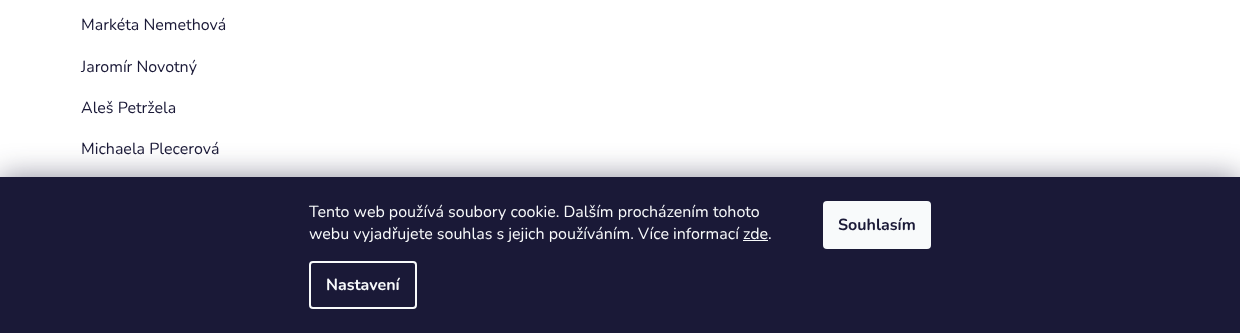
(async () => {
const canvas = document.querySelector("canvas")
canvas.width = 1240
canvas.height = 333
const c = canvas.getContext("2d")
c.miterLimit = 4
c.fontKerning = "normal"
function T(s,x,y){c.fillText(s,x,y)}
function R(x,y,w,h){c.fillRect(x,y,w,h)}
function Q(x,y,w,h,r){c.beginPath();c.roundRect(x,y,w,h,r);c.fill()}
c.fillStyle="#fff"
R(0,0,1240,333)
c.font="16px Nunito"
c.fillStyle="#1a1937"
T("Markéta Nemethová",81,30)
T("Jaromír Novotný",81,72)
T("Aleš Petržela",81,113)
T("Michaela Plecerová",81,154)
c.fillStyle="#1b193980"
c.filter="blur(15px)"
c.beginPath()
c.rect(0,177,1240,156)
c.fill()
c.filter="none"
c.fillStyle="#1a1937"
R(0,177,1240,156)
c.fillStyle="#f8fafb"
T("Tento web používá soubory cookie. Dalším procházením tohoto",309,217)
T("webu vyjadřujete souhlas s jejich používáním. Více informací zde.",309,239)
R(743,240,25,1)
c.beginPath()
c.roundRect(310,262,106,46,3)
c.strokeStyle="#f8fafb"
c.lineWidth=2
c.stroke()
c.font="bold 16px Nunito"
T("Nastavení",326,290)
Q(823,201,108,48,4)
c.fillStyle="#1a1937"
T("Souhlasím",838,230)
})()
